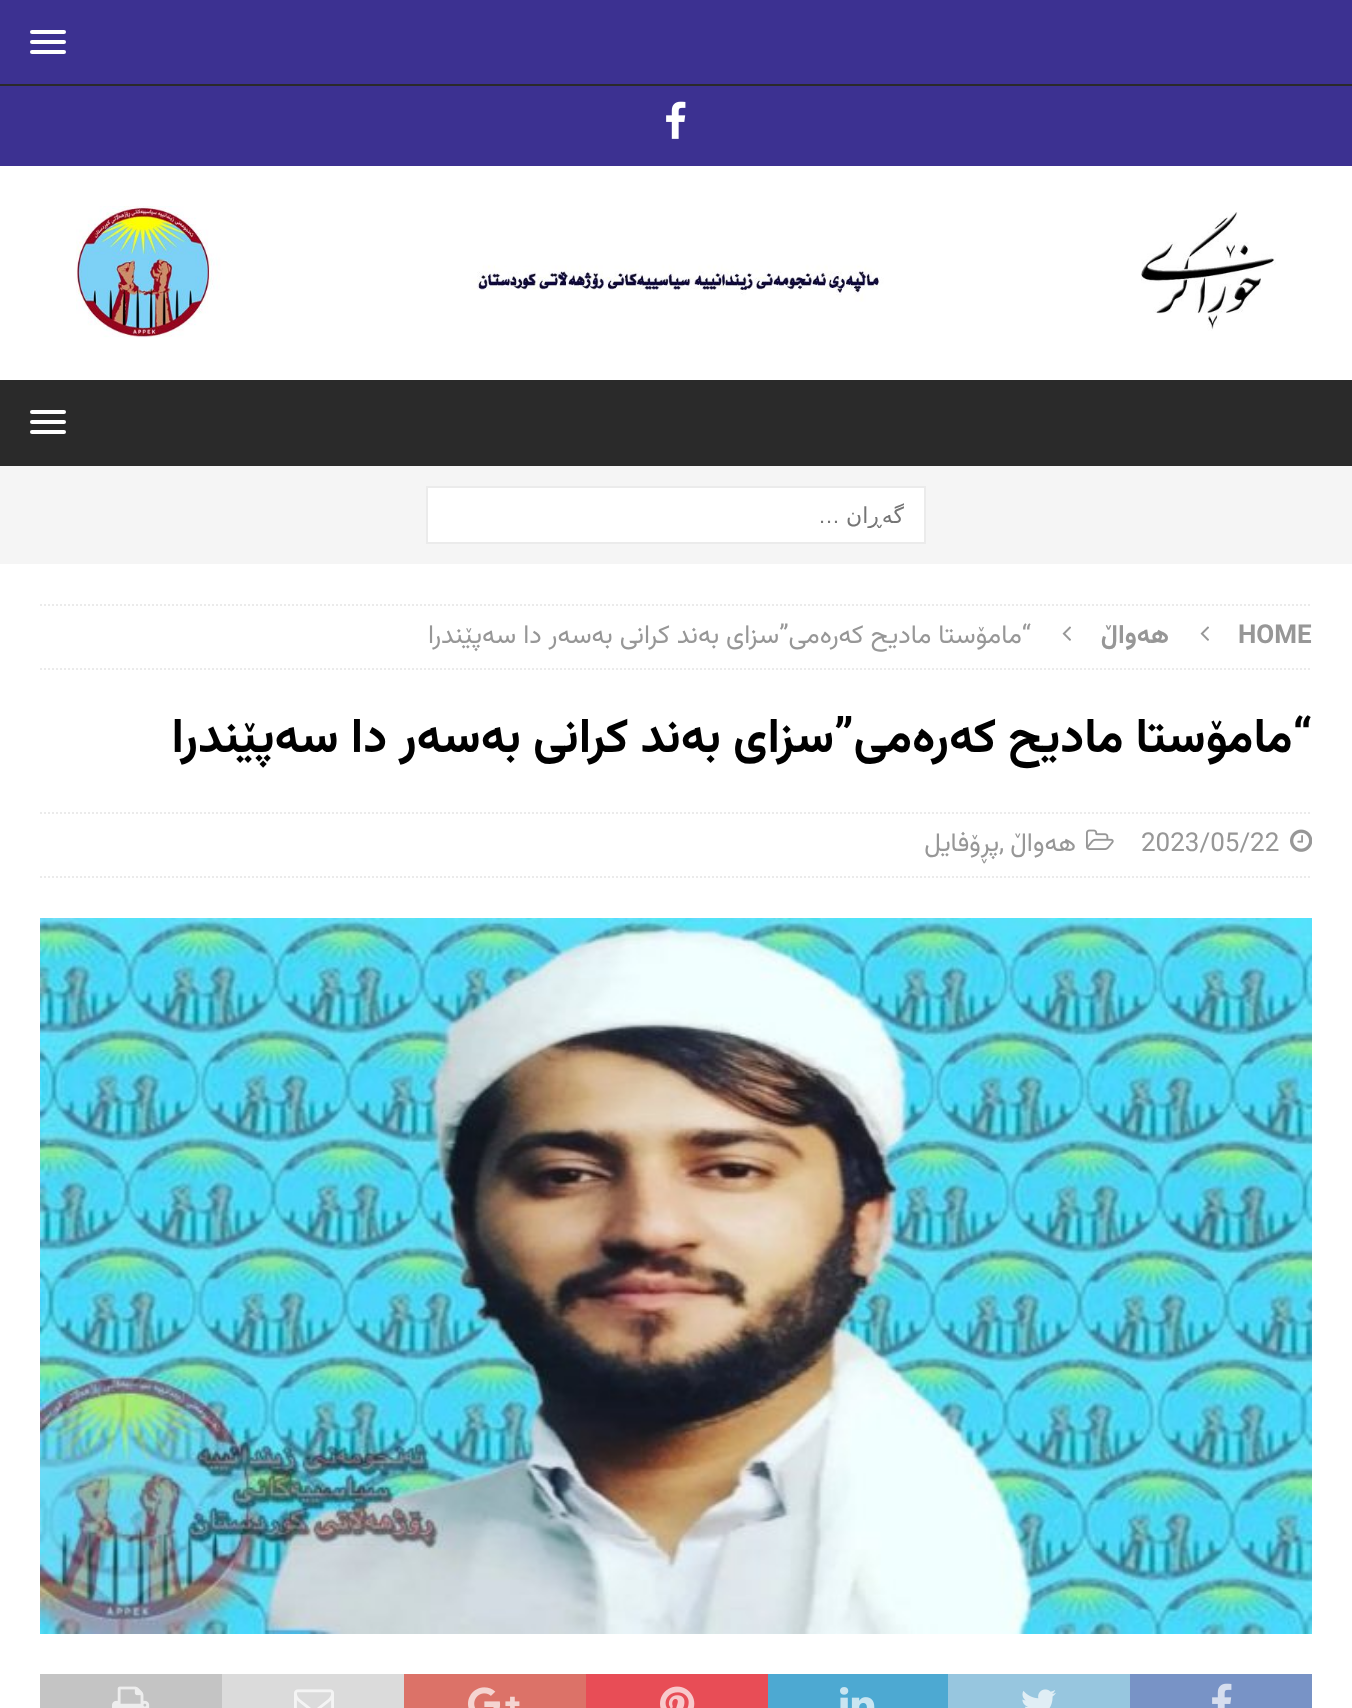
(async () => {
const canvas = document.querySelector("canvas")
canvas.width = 1352
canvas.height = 1708
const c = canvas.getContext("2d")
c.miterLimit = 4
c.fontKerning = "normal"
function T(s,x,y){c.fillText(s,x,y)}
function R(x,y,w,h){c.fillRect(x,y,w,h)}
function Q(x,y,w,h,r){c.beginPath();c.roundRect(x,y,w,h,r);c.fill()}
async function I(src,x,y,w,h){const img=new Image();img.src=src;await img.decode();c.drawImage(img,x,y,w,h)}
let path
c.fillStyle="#3c3191"
R(0,0,1352,1708)
c.fillStyle="#2a2a2a"
R(0,84,1352,2)
c.fillStyle="#fff"
Q(30,30,36,4,2)
Q(30,40,36,4,2)
Q(30,50,36,4,2)
await I("1.png",666,101,20,38)
R(0,166,1352,214)
await I("2.png",76,206,1200,132)
c.fillStyle="#2a2a2a"
R(0,380,1352,86)
c.fillStyle="#fff"
Q(30,410,36,4,2)
Q(30,420,36,4,2)
Q(30,430,36,4,2)
c.fillStyle="#f5f5f5"
R(0,466,1352,98)
c.fillStyle="#fff"
c.beginPath()
c.rect(427,487,498,56)
c.fill()
c.strokeStyle="#ebebeb"
c.lineWidth=2
c.stroke()
c.save()
c.beginPath()
c.rect(472,502,432,26)
c.clip()
c.direction="rtl"
c.font="22px DejaVu Sans"
c.fillStyle="#757575"
T("گەڕان",904,523)
c.restore()
c.direction="rtl"
c.font="22px Liberation Sans"
c.fillStyle="#757575"
T("…",840,523)
c.fillStyle="#fff"
R(0,564,1352,1144)
path = new Path2D("M40 605h1272")
c.setLineDash([2,2])
c.stroke(path)
path = new Path2D("M40 669h1272")
c.stroke(path)
c.direction="ltr"
c.font="bold 26px Vazirmatn"
c.fillStyle="#979797"
T("HOME",1238,643)
await I("3.png",1200,626,9,15)
c.direction="rtl"
T("هەواڵ",1169,643)
await I("3.png",1062,626,9,15)
c.font="26px Vazirmatn"
T("“مامۆستا مادیح کەرەمی”سزای بەند کرانی بەسەر دا سەپێندرا",1031,643)
c.font="bold 48px Vazirmatn"
c.fillStyle="#000"
T("“مامۆستا مادیح کەرەمی”سزای بەند کرانی بەسەر دا سەپێندرا",1312,752)
path = new Path2D("M40 813h1272")
c.stroke(path)
path = new Path2D("M40 877h1272")
c.stroke(path)
await I("4.png",1290,829,22,23)
c.direction="ltr"
c.font="26px Vazirmatn"
c.fillStyle="#979797"
T("2023/05/22",1141,851)
await I("5.png",1086,829,28,21)
c.direction="rtl"
T("هەواڵ",1076,851)
c.direction="ltr"
T(",",999,851)
c.direction="rtl"
T("پڕۆفایل",999,851)
await I("6.png",40,918,1272,716)
c.fillStyle="#7893c6"
R(1130,1674,182,34)
await I("7.png",1212,1683,20,25)
c.fillStyle="#97c6df"
R(948,1674,182,34)
await I("8.png",1022,1689,34,19)
c.fillStyle="#4da9d2"
R(768,1674,180,34)
await I("9.png",840,1687,35,21)
c.fillStyle="#e84d56"
R(586,1674,182,34)
await I("10.png",660,1686,35,22)
c.fillStyle="#dc7268"
R(404,1674,182,34)
await I("11.png",468,1687,52,21)
c.fillStyle="#dbdbdb"
R(222,1674,182,34)
await I("12.png",294,1689,40,19)
c.fillStyle="#c4c4c4"
R(40,1674,182,34)
await I("13.png",112,1686,38,22)
})()
